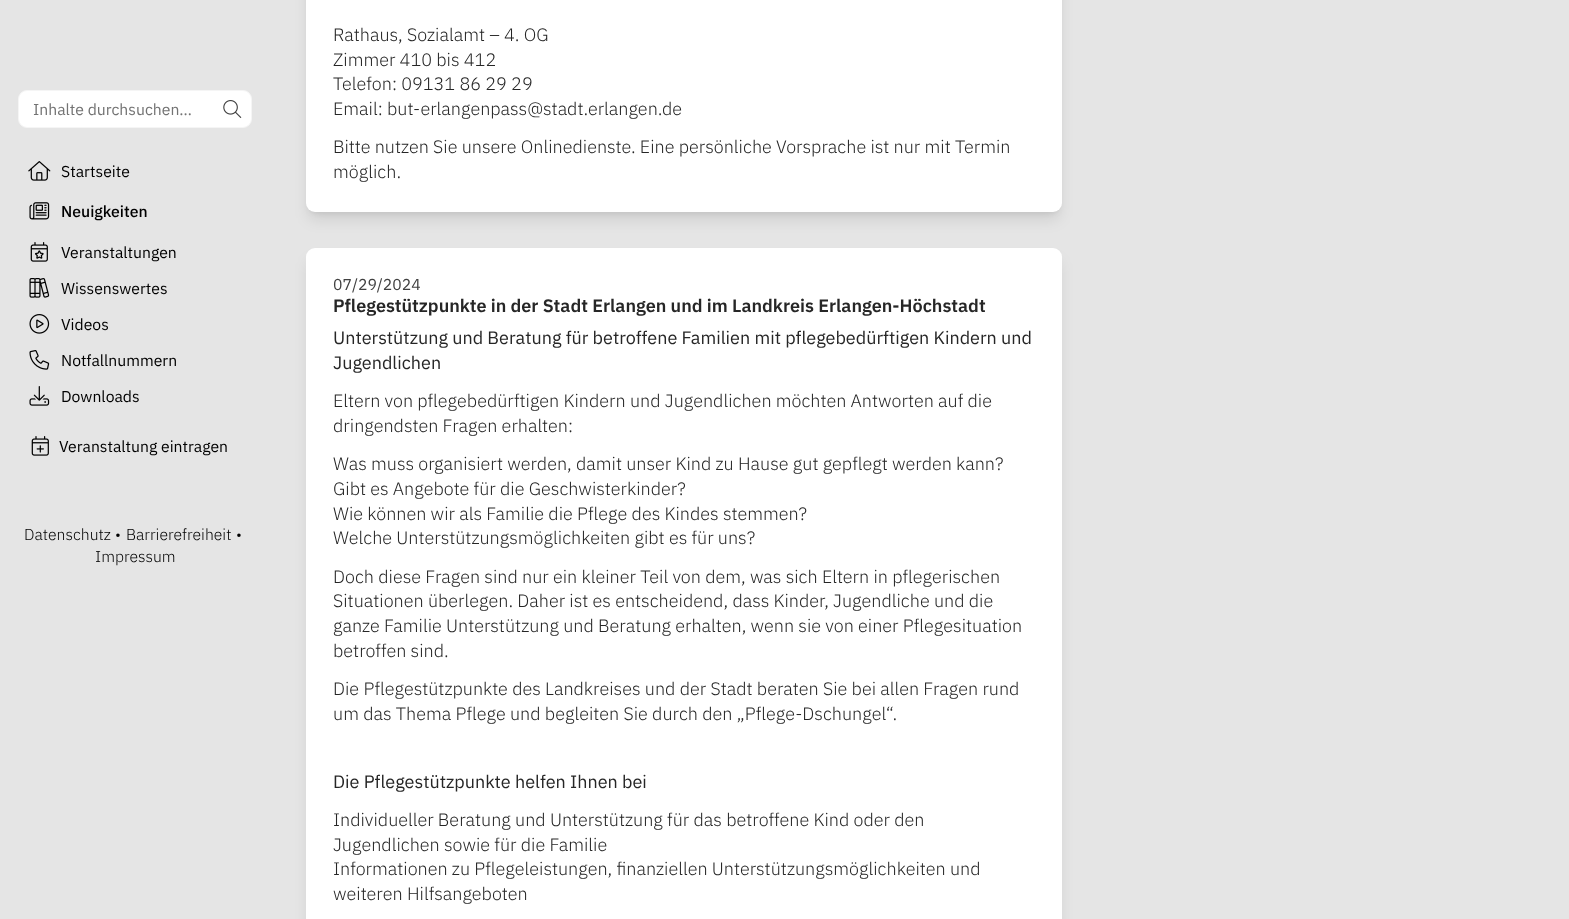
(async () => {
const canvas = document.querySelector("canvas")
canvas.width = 1569
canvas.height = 919
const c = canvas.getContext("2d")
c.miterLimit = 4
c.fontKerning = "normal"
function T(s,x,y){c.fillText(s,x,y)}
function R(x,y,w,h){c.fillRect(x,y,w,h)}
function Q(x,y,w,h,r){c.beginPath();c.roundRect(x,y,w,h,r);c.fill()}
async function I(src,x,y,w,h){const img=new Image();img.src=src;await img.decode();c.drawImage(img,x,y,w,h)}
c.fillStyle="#e5e5e5"
R(0,0,1569,919)
c.fillStyle="#fff"
c.beginPath()
c.roundRect(18.5,90.5,233,37,8.5)
c.fill()
c.strokeStyle="#f5f5f5"
c.stroke()
c.font="15.75px IBM Plex Sans"
c.fillStyle="#737373"
T("Inhalte durchsuchen…",33,115)
await I("1.png",223,100,19,18)
await I("2.png",28,161,23,20)
c.fillStyle="#000"
T("Startseite",61,177)
await I("3.png",29,202,21,18)
c.font="500 15.75px IBM Plex Sans"
T("Neuigkeiten",61,217)
await I("4.png",30,242,18,20)
c.font="15.75px IBM Plex Sans"
T("Veranstaltungen",61,258)
await I("5.png",29,278,21,20)
T("Wissenswertes",61,294)
await I("6.png",29,314,21,20)
T("Videos",61,330)
await I("7.png",29,350,21,20)
T("Notfallnummern",61,366)
await I("8.png",29,386,21,20)
T("Downloads",61,402)
await I("9.png",31,436,18,20)
T("Veranstaltung eintragen",59,452)
c.font="300 15.75px IBM Plex Sans"
T("Datenschutz",24,540)
T("•",115,540)
T("Barrierefreiheit",126,540)
T("•",236,540)
T("Impressum",95,562)
c.fillStyle="#0000001a"
c.filter="blur(3px)"
c.beginPath()
c.roundRect(310,-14,748,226,5)
c.fill()
c.filter="none"
c.filter="blur(7.5px)"
c.beginPath()
c.roundRect(309,-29,750,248,6)
c.fill()
c.filter="none"
c.fillStyle="#fff"
Q(306,-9,756,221,9)
c.font="300 18px IBM Plex Sans"
c.fillStyle="#262626"
T("Rathaus, Sozialamt – 4. OG",333,41)
T("Zimmer 410 bis 412",333,66)
T("Telefon: 09131 86 29 29",333,90)
T("Email: but-erlangenpass@stadt.erlangen.de",333,115)
T("Bitte nutzen Sie unsere Onlinedienste. Eine persönliche Vorsprache ist nur mit Termin",333,153)
T("möglich.",333,178)
c.fillStyle="#0000001a"
c.filter="blur(7.5px)"
c.beginPath()
c.roundRect(309,261,750,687,6)
c.fill()
c.filter="none"
c.fillStyle="#fff"
Q(306,248,756,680,9)
c.font="15.75px IBM Plex Sans"
c.fillStyle="#404040"
T("07/29/2024",333,290)
c.font="600 18px IBM Plex Sans"
c.fillStyle="#262626"
T("Pflegestützpunkte in der Stadt Erlangen und im Landkreis Erlangen-Höchstadt",333,312)
c.font="18px IBM Plex Sans"
T("Unterstützung und Beratung für betroffene Familien mit pflegebedürftigen Kindern und",333,344)
T("Jugendlichen",333,369)
c.font="300 18px IBM Plex Sans"
T("Eltern von pflegebedürftigen Kindern und Jugendlichen möchten Antworten auf die",333,407)
T("dringendsten Fragen erhalten:",333,432)
T("Was muss organisiert werden, damit unser Kind zu Hause gut gepflegt werden kann?",333,470)
T("Gibt es Angebote für die Geschwisterkinder?",333,495)
T("Wie können wir als Familie die Pflege des Kindes stemmen?",333,520)
T("Welche Unterstützungsmöglichkeiten gibt es für uns?",333,544)
T("Doch diese Fragen sind nur ein kleiner Teil von dem, was sich Eltern in pflegerischen",333,583)
T("Situationen überlegen. Daher ist es entscheidend, dass Kinder, Jugendliche und die",333,607)
T("ganze Familie Unterstützung und Beratung erhalten, wenn sie von einer Pflegesituation",333,632)
T("betroffen sind.",333,657)
T("Die Pflegestützpunkte des Landkreises und der Stadt beraten Sie bei allen Fragen rund",333,695)
T("um das Thema Pflege und begleiten Sie durch den „Pflege-Dschungel“.",333,720)
c.font="18px IBM Plex Sans"
T("Die Pflegestützpunkte helfen Ihnen bei",333,788)
c.font="300 18px IBM Plex Sans"
T("Individueller Beratung und Unterstützung für das betroffene Kind oder den",333,826)
T("Jugendlichen sowie für die Familie",333,851)
T("Informationen zu Pflegeleistungen, finanziellen Unterstützungsmöglichkeiten und",333,875)
T("weiteren Hilfsangeboten",333,900)
})()
